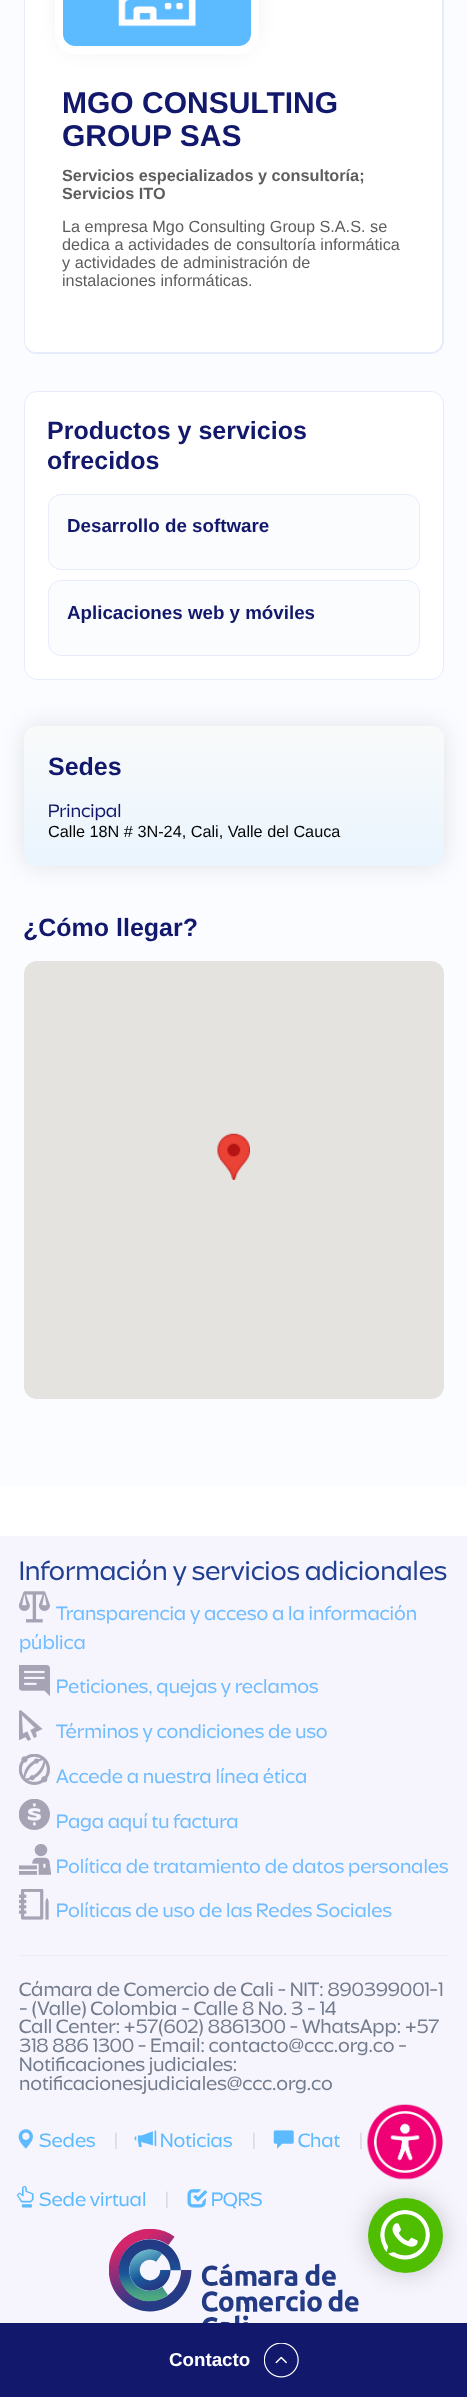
(async () => {
const canvas = document.querySelector("canvas")
canvas.width = 467
canvas.height = 2397
const c = canvas.getContext("2d")
c.miterLimit = 4
c.fontKerning = "normal"
function T(s,x,y){c.fillText(s,x,y)}
function R(x,y,w,h){c.fillRect(x,y,w,h)}
function Q(x,y,w,h,r){c.beginPath();c.roundRect(x,y,w,h,r);c.fill()}
async function I(src,x,y,w,h){const img=new Image();img.src=src;await img.decode();c.drawImage(img,x,y,w,h)}
let gradient, path
c.fillStyle="#fbfcff"
R(0,0,467,2397)
c.fillStyle="#fff"
path = new Path2D("M24-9h420v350c0 7-6 13-13 13h-394c-7 0-13-6-13-13z")
c.fill(path)
c.fillStyle="#e7ecfd"
path = new Path2D("M24-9h420v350c0 7-6 13-13 13h-395c-7 0-12-6-12-13zm1 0h417v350c0 6-5 11-11 11h-395c-6 0-11-5-11-11z")
c.fill(path,"evenodd")
c.fillStyle="#0000001a"
c.filter="blur(12.5px)"
c.beginPath()
c.roundRect(63,-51,188,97,13)
c.fill()
c.filter="none"
await I("1.png",63,0,188,46)
c.beginPath()
c.roundRect(59,-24,196,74,16)
c.strokeStyle="#fff"
c.lineWidth=8
c.stroke()
c.font="bold 30px Liberation Sans"
c.fillStyle="#12186b"
T("MGO CONSULTING",62,113)
T("GROUP SAS",62,146)
c.font="bold 16.25px Liberation Sans"
c.fillStyle="#5d5d5d"
T("Servicios especializados y consultoría;",62,181)
T("Servicios ITO",62,199)
c.font="16.25px Liberation Sans"
T("La empresa Mgo Consulting Group S.A.S. se",62,232)
T("dedica a actividades de consultoría informática",62,250)
T("y actividades de administración de",62,268)
T("instalaciones informáticas.",62,286)
c.fillStyle="#fff"
c.beginPath()
c.roundRect(24.5,391.5,419,288,12.5)
c.fill()
c.strokeStyle="#e7ecfd"
c.lineWidth=1
c.stroke()
c.font="bold 25px Liberation Sans"
c.fillStyle="#12186b"
T("Productos y servicios",47,439)
T("ofrecidos",47,469)
c.fillStyle="#fbfcfd"
c.beginPath()
c.roundRect(48.5,494.5,371,75,12.5)
c.fill()
c.stroke()
c.font="bold 18.75px Liberation Sans"
c.fillStyle="#12186b"
T("Desarrollo de software",67,532)
c.fillStyle="#fbfcfd"
c.beginPath()
c.roundRect(48.5,580.5,371,75,12.5)
c.fill()
c.stroke()
c.fillStyle="#12186b"
T("Aplicaciones web y móviles",67,619)
c.fillStyle="#0000001a"
c.filter="blur(12.5px)"
c.beginPath()
c.roundRect(24,726,420,140,13)
c.fill()
c.filter="none"
gradient = c.createLinearGradient(234,726,234,866)
gradient.addColorStop(0,"#f9fafa")
gradient.addColorStop(1,"#eaf5fe")
c.fillStyle = gradient
Q(24,726,420,140,13)
c.font="bold 25px Liberation Sans"
c.fillStyle="#12186b"
T("Sedes",48,775)
c.font="300 18.75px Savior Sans"
T("Principal",48,817)
c.font="16.25px Liberation Sans"
c.fillStyle="#050505"
T("Calle 18N # 3N-24, Cali, Valle del Cauca",48,837)
c.font="bold 25px Liberation Sans"
c.fillStyle="#12186b"
T("¿Cómo llegar?",23,936)
c.fillStyle="#e5e3df"
Q(24,961,420,438,13)
await I("2.png",217,1133,33,47)
c.fillStyle="#fff"
R(0,1486,467,50)
c.fillStyle="#f6f4fd"
R(0,1536,467,787)
c.font="300 27.5px Savior Sans"
c.fillStyle="#214092"
T("Información y servicios adicionales",19,1580)
await I("3.png",19,1591,31,32)
c.font="300 20px Savior Sans"
c.fillStyle="#6fbcff"
T("Transparencia y acceso a la información",56,1620)
T("pública",19,1649)
await I("4.png",19,1665,31,31)
T("Peticiones, quejas y reclamos",56,1693)
await I("5.png",19,1710,24,31)
T("Términos y condiciones de uso",56,1738)
await I("6.png",19,1754,31,31)
T("Accede a nuestra línea ética",56,1783)
await I("7.png",19,1799,31,31)
T("Paga aquí tu factura",56,1828)
await I("8.png",19,1844,32,31)
T("Política de tratamiento de datos personales",56,1873)
await I("9.png",19,1889,30,31)
T("Políticas de uso de las Redes Sociales",56,1917)
c.fillStyle="#eee"
R(19,1955,430,1)
c.fillStyle="#737c8d"
T("Cámara de Comercio de Cali - NIT: 890399001-1",19,1996)
T("- (Valle) Colombia - Calle 8 No. 3 - 14",19,2015)
T("Call Center: +57(602) 8861300 - WhatsApp: +57",19,2033)
T("318 886 1300 - Email: contacto@ccc.org.co -",19,2052)
T("Notificaciones judiciales:",19,2071)
T("notificacionesjudiciales@ccc.org.co",19,2090)
await I("10.png",18,2129,15,20)
c.fillStyle="#5cbaff"
T("Sedes",39,2147)
c.fillStyle="#ddd"
T("|",114,2147)
await I("11.png",134,2130,23,18)
c.fillStyle="#5cbaff"
T("Noticias",160,2147)
c.fillStyle="#ddd"
T("|",252,2147)
await I("12.png",273,2130,21,19)
c.fillStyle="#5cbaff"
T("Chat",298,2147)
c.fillStyle="#ddd"
T("|",359,2147)
await I("13.png",16,2186,18,22)
c.fillStyle="#5cbaff"
T("Sede virtual",39,2206)
c.fillStyle="#ddd"
T("|",165,2206)
await I("14.png",187,2189,21,19)
c.fillStyle="#5cbaff"
T("PQRS",211,2206)
await I("15.png",109,2229,250,94)
c.fillStyle="#00000033"
c.filter="blur(12.5px)"
c.beginPath()
c.roundRect(368,2198,75,75,37.5)
c.fill()
c.filter="none"
c.fillStyle="#efefef"
c.beginPath()
c.arc(405.5,2141.5,37.5,0,7)
c.fill()
await I("16.png",367,2104,76,76)
c.fillStyle="#50be00"
c.beginPath()
c.arc(405.5,2235.5,37.5,0,7)
c.fill()
await I("17.png",380,2210,50,50)
c.fillStyle="#12186b"
R(0,2323,467,74)
c.font="bold 18.75px Liberation Sans"
c.fillStyle="#fff"
T("Contacto",169,2366)
await I("18.png",264,2343,35,35)
})()
